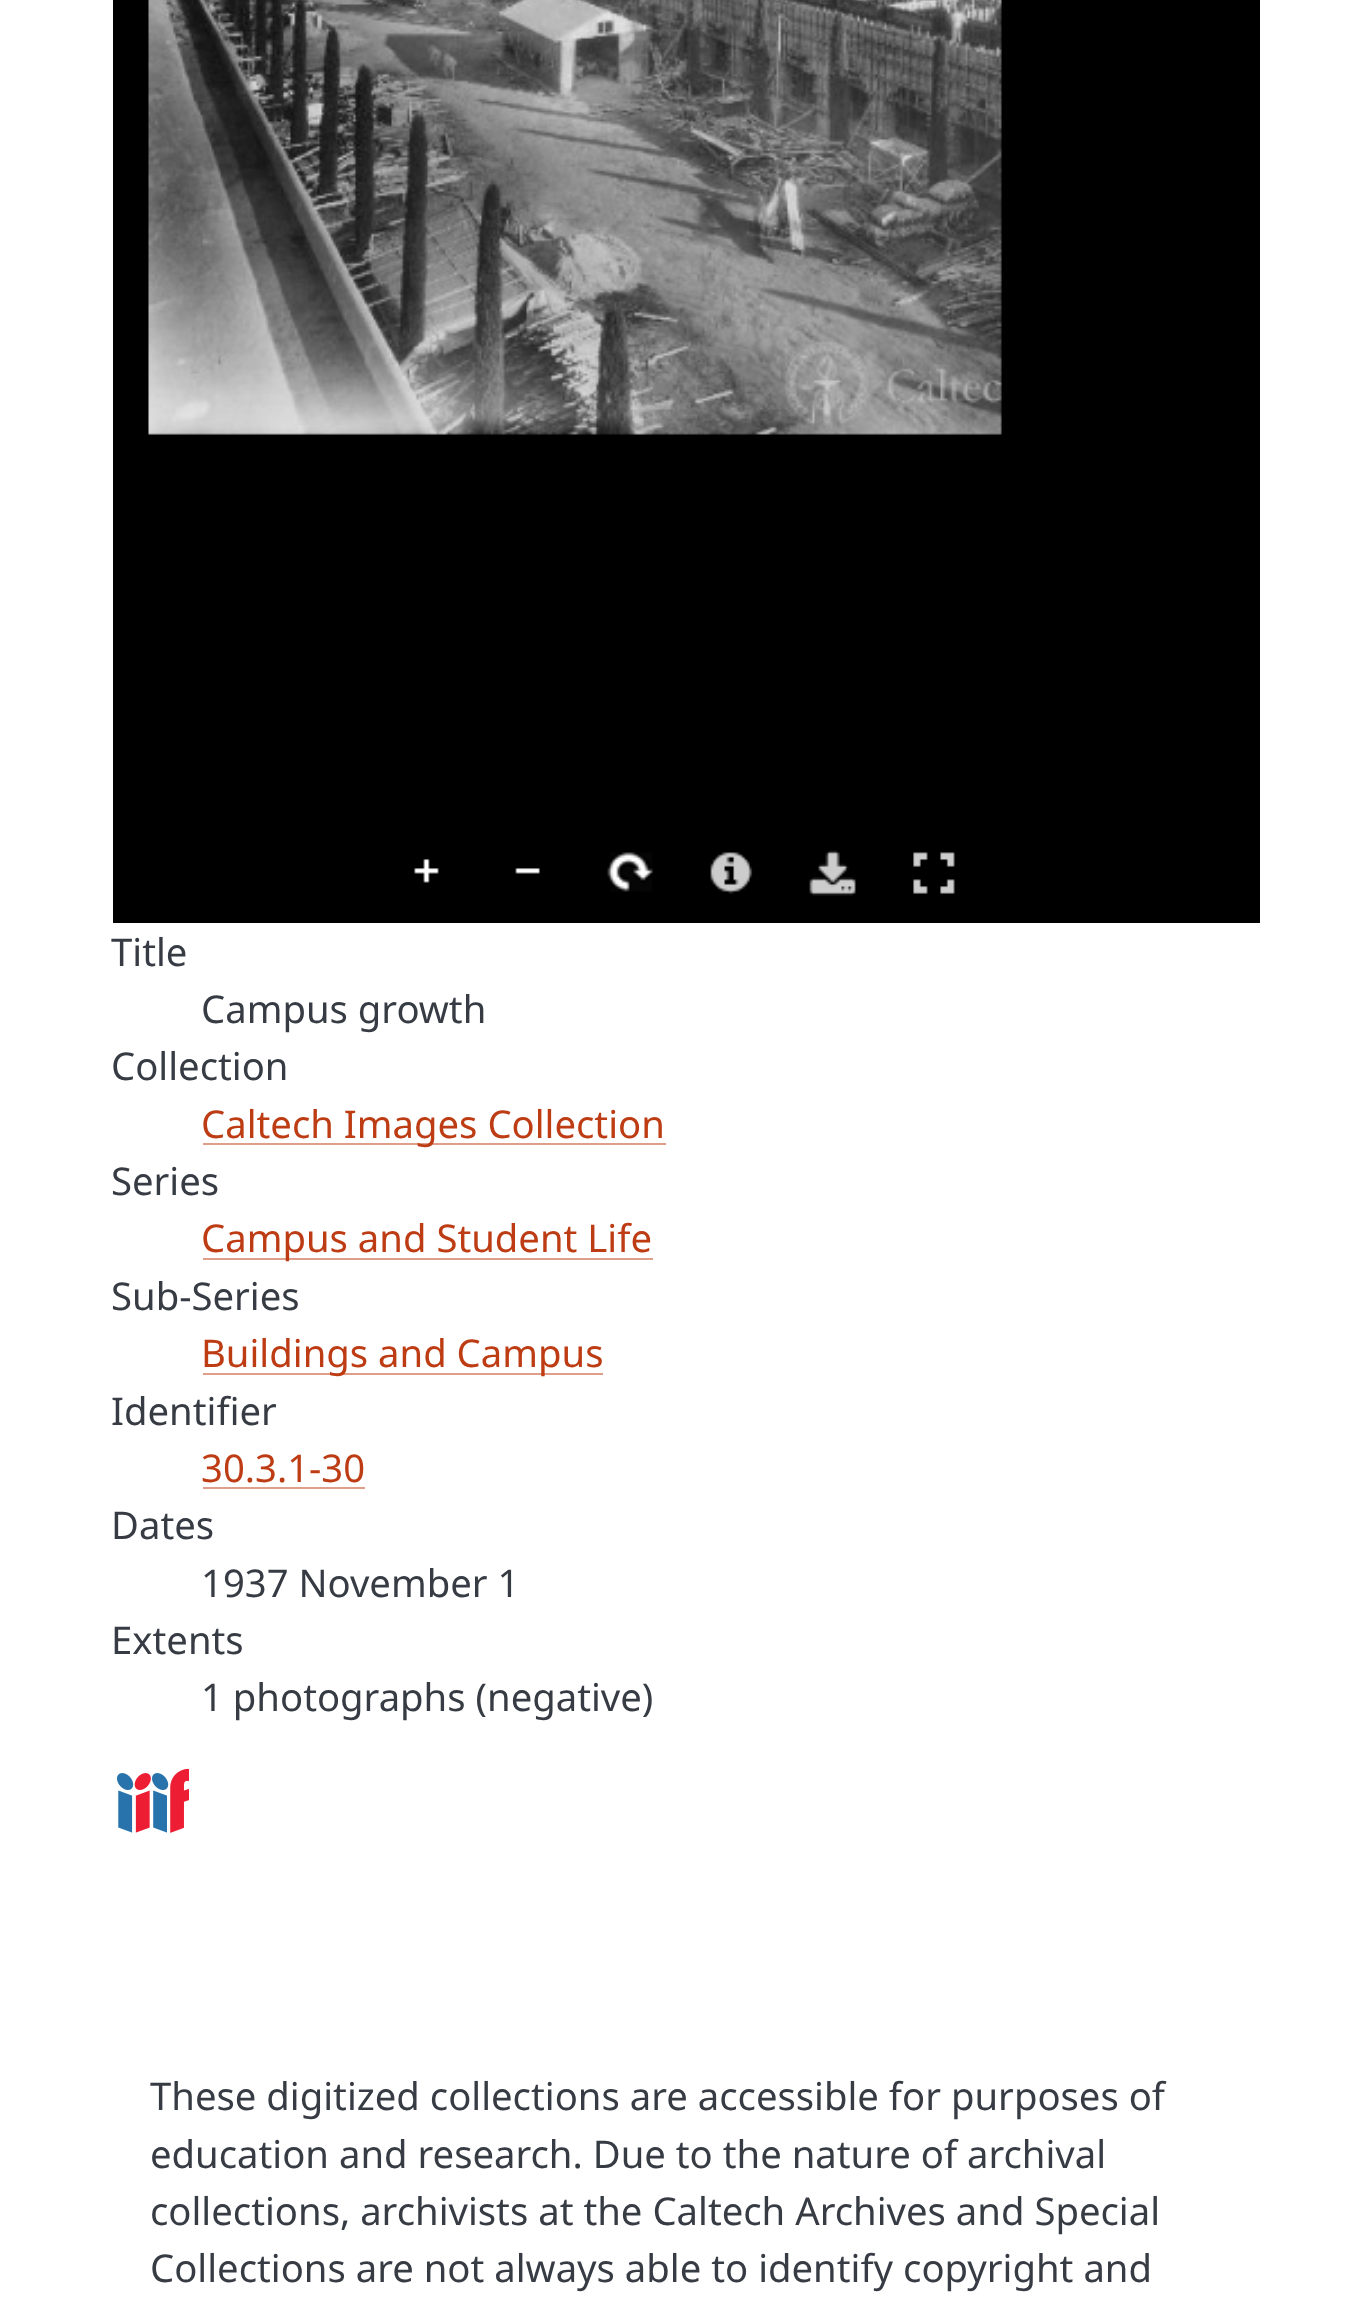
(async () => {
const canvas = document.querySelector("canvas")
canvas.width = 1370
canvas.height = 2304
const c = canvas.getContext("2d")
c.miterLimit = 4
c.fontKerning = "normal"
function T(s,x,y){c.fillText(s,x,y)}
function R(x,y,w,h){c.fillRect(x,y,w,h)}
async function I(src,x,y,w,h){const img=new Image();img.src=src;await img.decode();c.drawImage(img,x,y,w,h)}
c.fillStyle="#fff"
R(0,0,1370,2304)
c.fillStyle="#000"
R(113,0,1147,923)
await I("1.png",148,0,854,435)
await I("2.png",414,859,25,24)
await I("3.png",515,868,25,6)
await I("4.png",607,852,47,40)
await I("5.png",710,852,43,42)
await I("6.png",809,850,47,46)
await I("7.png",913,852,42,42)
c.font="38.25px Noto Sans"
c.fillStyle="#373c44"
T("Title",111,966)
T("Campus growth",201,1023)
T("Collection",111,1080)
c.fillStyle="#de9e89"
R(203,1143,463,2)
c.fillStyle="#bd3c13"
T("Caltech Images Collection",201,1138)
c.fillStyle="#373c44"
T("Series",111,1195)
c.fillStyle="#de9e89"
R(203,1258,450,2)
c.fillStyle="#bd3c13"
T("Campus and Student Life",201,1252)
c.fillStyle="#373c44"
T("Sub-Series",111,1310)
c.fillStyle="#de9e89"
R(203,1373,400,2)
c.fillStyle="#bd3c13"
T("Buildings and Campus",201,1367)
c.fillStyle="#373c44"
T("Identifier",111,1425)
c.fillStyle="#bd3c13"
T("30.3.1-30",201,1482)
c.fillStyle="#de9e89"
R(203,1487,162,2)
c.fillStyle="#373c44"
T("Dates",111,1539)
T("1937 November 1",201,1597)
T("Extents",111,1654)
T("1 photographs (negative)",201,1711)
await I("8.png",117,1769,72,64)
T("These digitized collections are accessible for purposes of",150,2110)
T("education and research. Due to the nature of archival",150,2168)
T("collections, archivists at the Caltech Archives and Special",150,2225)
T("Collections are not always able to identify copyright and",150,2282)
})()
